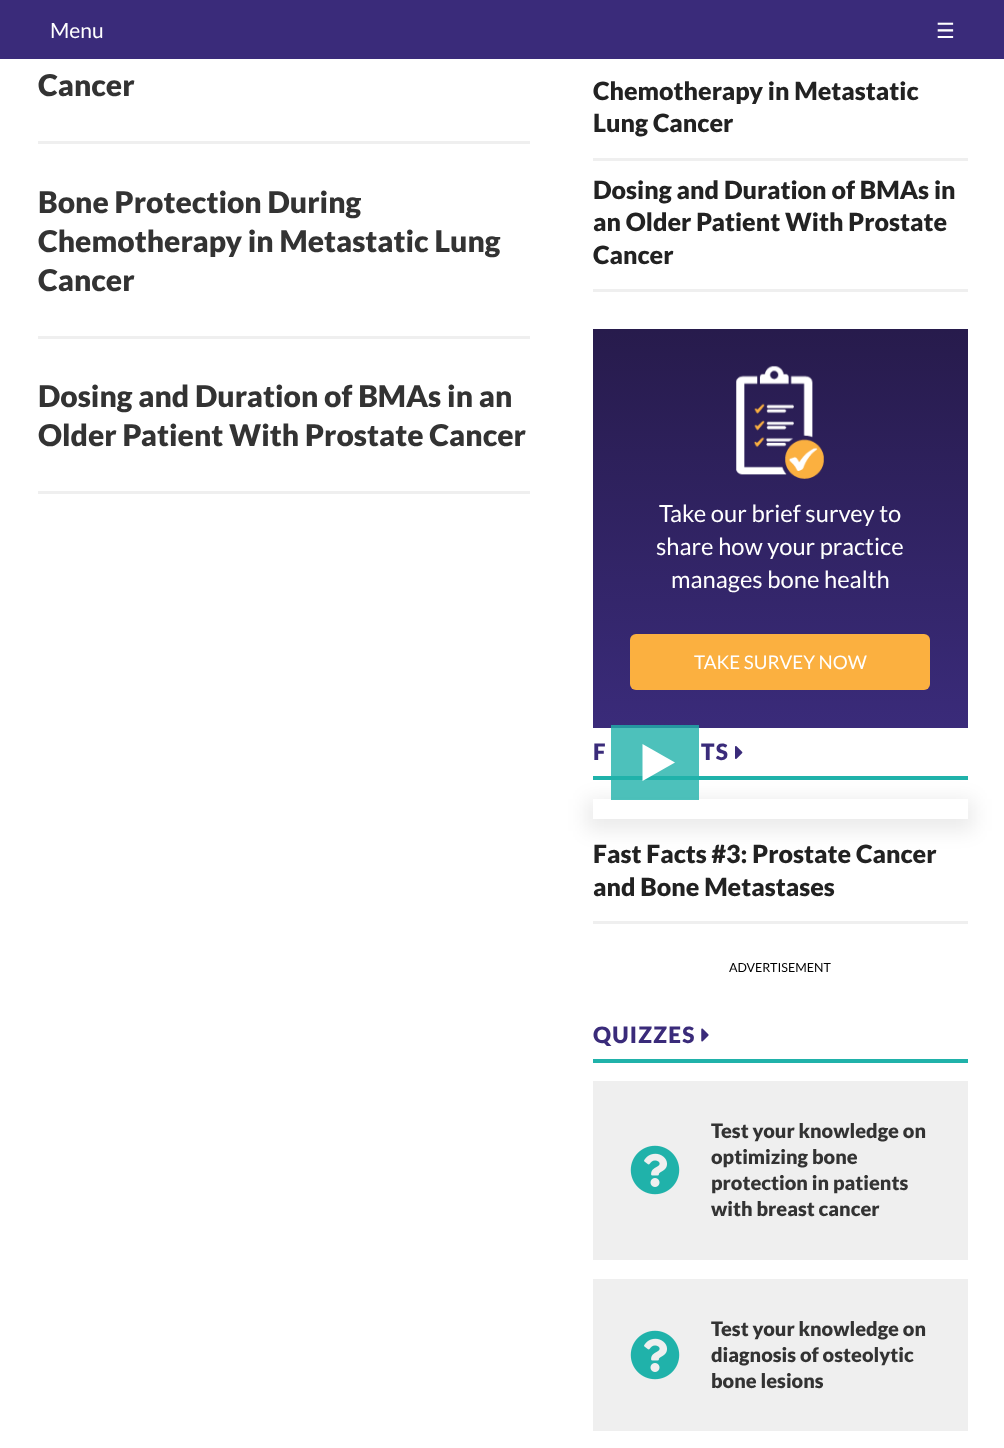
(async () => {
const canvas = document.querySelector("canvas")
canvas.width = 1004
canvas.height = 1448
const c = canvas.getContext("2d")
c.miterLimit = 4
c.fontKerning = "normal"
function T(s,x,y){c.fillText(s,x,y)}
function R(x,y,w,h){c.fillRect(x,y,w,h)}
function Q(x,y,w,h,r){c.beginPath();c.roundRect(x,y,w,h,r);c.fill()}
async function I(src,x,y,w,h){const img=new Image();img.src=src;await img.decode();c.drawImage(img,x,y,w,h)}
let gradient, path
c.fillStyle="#fff"
R(0,0,1004,1448)
c.fillStyle="#3a2b7a"
R(0,0,1004,59)
c.font="21px Lato"
c.fillStyle="#fff"
T("Menu",50,38)
c.font="21px DejaVu Sans"
T("☰",936,38)
c.fillStyle="#efefef"
R(38,141,492,3)
c.font="900 30px Lato"
c.fillStyle="#333"
T("Cancer",38,96)
c.fillStyle="#efefef"
R(38,336,492,3)
c.fillStyle="#333"
T("Bone Protection During",38,213)
T("Chemotherapy in Metastatic Lung",38,252)
T("Cancer",38,291)
c.fillStyle="#efefef"
R(38,491,492,3)
c.fillStyle="#333"
T("Dosing and Duration of BMAs in an",38,407)
T("Older Patient With Prostate Cancer",38,446)
c.fillStyle="#efefef"
R(593,158,375,3)
c.font="900 25px Lato"
c.fillStyle="#222"
T("Chemotherapy in Metastatic",593,100)
T("Lung Cancer",593,132)
c.fillStyle="#efefef"
R(593,289,375,3)
c.fillStyle="#222"
T("Dosing and Duration of BMAs in",593,199)
T("an Older Patient With Prostate",593,231)
T("Cancer",593,264)
gradient = c.createLinearGradient(780,329,780,728)
gradient.addColorStop(0,"#271b4c")
gradient.addColorStop(1,"#3a2b7a")
c.fillStyle = gradient
R(593,329,375,399)
await I("1.png",736,365,88,114)
c.font="23.75px Lato"
c.fillStyle="#fff"
T("Take our brief survey to",659,522)
T("share how your practice",656,555)
T("manages bone health",671,588)
c.fillStyle="#fbb040"
Q(630,634,300,56,6)
c.font="18.75px Lato"
c.fillStyle="#fff"
T("TAKE SURVEY NOW",694,669)
c.fillStyle="#20b2aa"
R(593,776,375,4)
c.save()
path = new Path2D("M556 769h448v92h-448zm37 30h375v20h-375z")
c.clip(path,"evenodd")
c.fillStyle="#00000014"
c.filter="blur(9.5px)"
c.beginPath()
c.rect(586,799,388,32)
c.fill()
c.filter="none"
c.restore()
c.fillStyle="#20b2aacc"
R(611,725,88,75)
c.fillStyle="#fff"
path = new Path2D("M642.5 781v-37l32.5 18.5z")
c.fill(path)
c.letterSpacing="1.25px"
c.font="900 22.5px Lato"
c.fillStyle="#3a2b7a"
T("F",593,760)
T("TS",701,760)
await I("2.png",735,746,8,13)
c.fillStyle="#efefef"
R(593,921,375,3)
c.letterSpacing="0px"
c.font="900 25px Lato"
c.fillStyle="#222"
T("Fast Facts #3: Prostate Cancer",593,863)
T("and Bone Metastases",593,896)
c.font="12.5px Lato"
c.fillStyle="#000"
T("ADVERTISEMENT",729,972)
c.fillStyle="#20b2aa"
R(593,1059,375,4)
c.letterSpacing="1.25px"
c.font="900 22.5px Lato"
c.fillStyle="#3a2b7a"
T("QUIZZES",593,1043)
await I("3.png",701,1028,8,14)
c.fillStyle="#efefef"
R(593,1081,375,179)
await I("4.png",630,1145,50,50)
c.letterSpacing="0px"
c.font="900 20px Lato"
c.fillStyle="#333"
T("Test your knowledge on",711,1138)
T("optimizing bone",711,1164)
T("protection in patients",711,1190)
T("with breast cancer",711,1216)
c.fillStyle="#efefef"
R(593,1279,375,152)
await I("4.png",630,1330,50,50)
c.fillStyle="#333"
T("Test your knowledge on",711,1336)
T("diagnosis of osteolytic",711,1362)
T("bone lesions",711,1388)
})()
